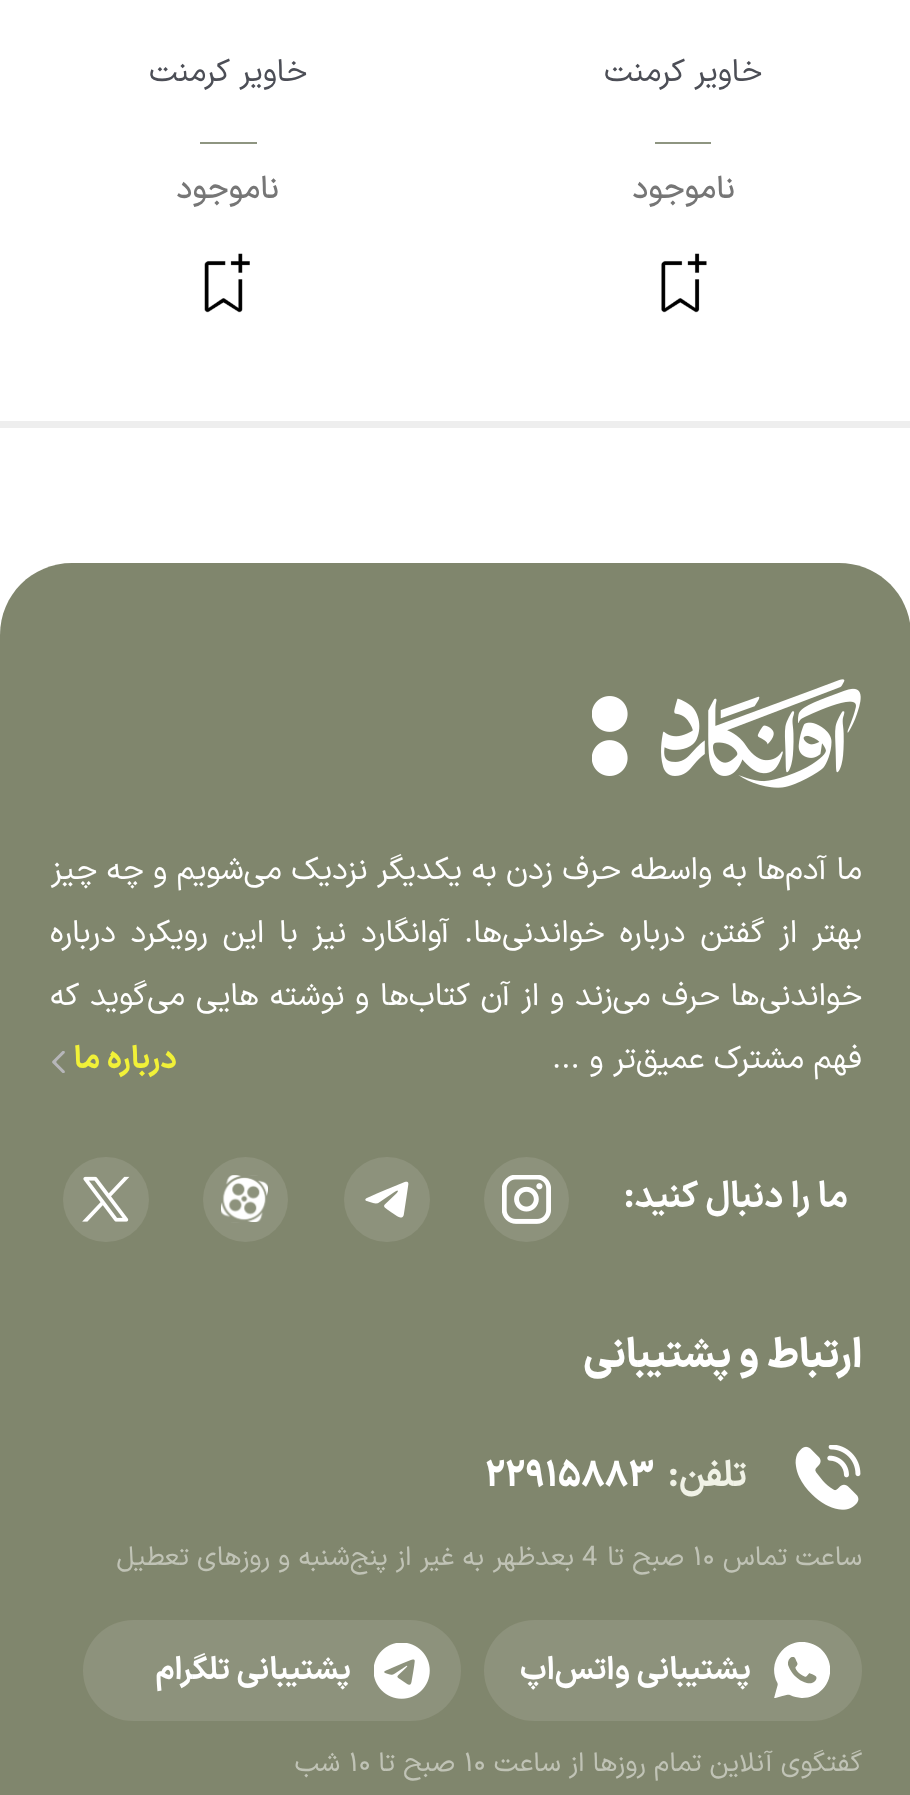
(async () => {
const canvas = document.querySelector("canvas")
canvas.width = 910
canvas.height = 1795
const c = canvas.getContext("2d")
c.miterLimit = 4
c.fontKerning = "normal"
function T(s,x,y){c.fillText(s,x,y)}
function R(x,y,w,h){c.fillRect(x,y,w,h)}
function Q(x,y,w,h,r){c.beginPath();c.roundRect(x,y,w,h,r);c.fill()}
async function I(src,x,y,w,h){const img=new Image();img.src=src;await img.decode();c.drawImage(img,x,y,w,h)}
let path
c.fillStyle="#fff"
R(0,0,910,1795)
c.fillStyle="#eee"
R(0,421,910,7)
c.direction="rtl"
c.font="31.5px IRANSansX"
c.fillStyle="#4c4e56"
T("خاویر كرمنت",762,81)
c.fillStyle="#8e9581"
R(655,142,56,2)
c.font="500 31.5px IRANSansX"
c.fillStyle="#767676"
T("ناموجود",735,198)
await I("1.png",661,253,46,60)
c.font="31.5px IRANSansX"
c.fillStyle="#4c4e56"
T("خاویر كرمنت",307,81)
c.fillStyle="#8e9581"
R(200,142,57,2)
c.font="500 31.5px IRANSansX"
c.fillStyle="#767676"
T("ناموجود",279,198)
await I("2.png",204,253,46,60)
c.fillStyle="#80866d"
path = new Path2D("M72 563h767c40 0 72 32 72 72v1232h-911v-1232c0-40 32-72 72-72z")
c.fill(path)
await I("3.png",592,679,269,109)
c.font="31.5px IRANSansX"
c.fillStyle="#fff"
T("ما آدم‌ها به واسطه حرف زدن به یکدیگر نزدیک می‌شویم و چه چیز",862,879)
c.wordSpacing="5.25px"
T("بهتر از گفتن درباره خواندنی‌ها. آوانگارد نیز با این رویکرد درباره",862,942)
c.wordSpacing="1.25px"
T("خواندنی‌ها حرف می‌زند و از آن کتاب‌ها و نوشته هایی می‌گوید که",862,1005)
c.wordSpacing="0px"
T("فهم مشترک عمیق‌تر و ...",862,1068)
c.font="bold 31.5px IRANSansX"
c.fillStyle="#f1f138"
T("درباره ما",177,1068)
await I("4.png",52,1051,13,22)
c.font="bold 36px IRANSansX"
c.fillStyle="#fff"
T("ما را دنبال کنید:",848,1207)
c.fillStyle="#8d927c"
c.beginPath()
c.arc(526.5,1199.5,42.5,0,7)
c.fill()
await I("5.png",502,1175,49,49)
Q(344,1157,86,85,42.5)
await I("6.png",365,1181,44,37)
c.beginPath()
c.arc(245.5,1199.5,42.5,0,7)
c.fill()
await I("7.png",221,1175,47,48)
Q(63,1157,86,85,42.5)
await I("8.png",82,1176,48,46)
c.font="800 40.5px IRANSansX"
c.fillStyle="#fff"
T("ارتباط و پشتیبانی",862,1367)
await I("9.png",795,1445,66,65)
c.font="bold 36px IRANSansX"
c.fillStyle="#f0f2e6"
T("تلفن:",747,1486)
c.direction="ltr"
c.font="800 36px IRANSansX"
c.fillStyle="#fff"
T("۲۲۹۱۵۸۸۳",485,1486)
c.direction="rtl"
c.font="27px IRANSansX"
c.fillStyle="#c0c3b6"
T("ساعت تماس",862,1565)
c.direction="ltr"
c.font="27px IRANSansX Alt"
T("10",693,1565)
c.direction="rtl"
c.font="27px IRANSansX"
T("صبح تا",684,1565)
c.direction="ltr"
T("4",582,1565)
c.direction="rtl"
T("بعدظهر",574,1565)
T("به غیر از پنج‌شنبه و روزهای تعطیل",484,1565)
c.fillStyle="#8d927c"
Q(484,1620,378,101,50.5)
await I("10.png",774,1642,56,56)
c.font="bold 31.5px IRANSansX"
c.fillStyle="#fff"
T("پشتیبانی واتس‌اپ",751,1679)
c.fillStyle="#8d927c"
Q(83,1620,378,101,50.5)
await I("11.png",374,1643,56,56)
c.fillStyle="#fff"
T("پشتیبانی تلگرام",351,1679)
c.font="27px IRANSansX"
c.fillStyle="#c0c3b6"
T("گفتگوی آنلاین تمام روزها از ساعت",862,1771)
c.direction="ltr"
T("۱۰",464,1771)
c.direction="rtl"
T("صبح تا",455,1771)
c.direction="ltr"
T("۱۰",349,1771)
c.direction="rtl"
T("شب",340,1771)
})()
